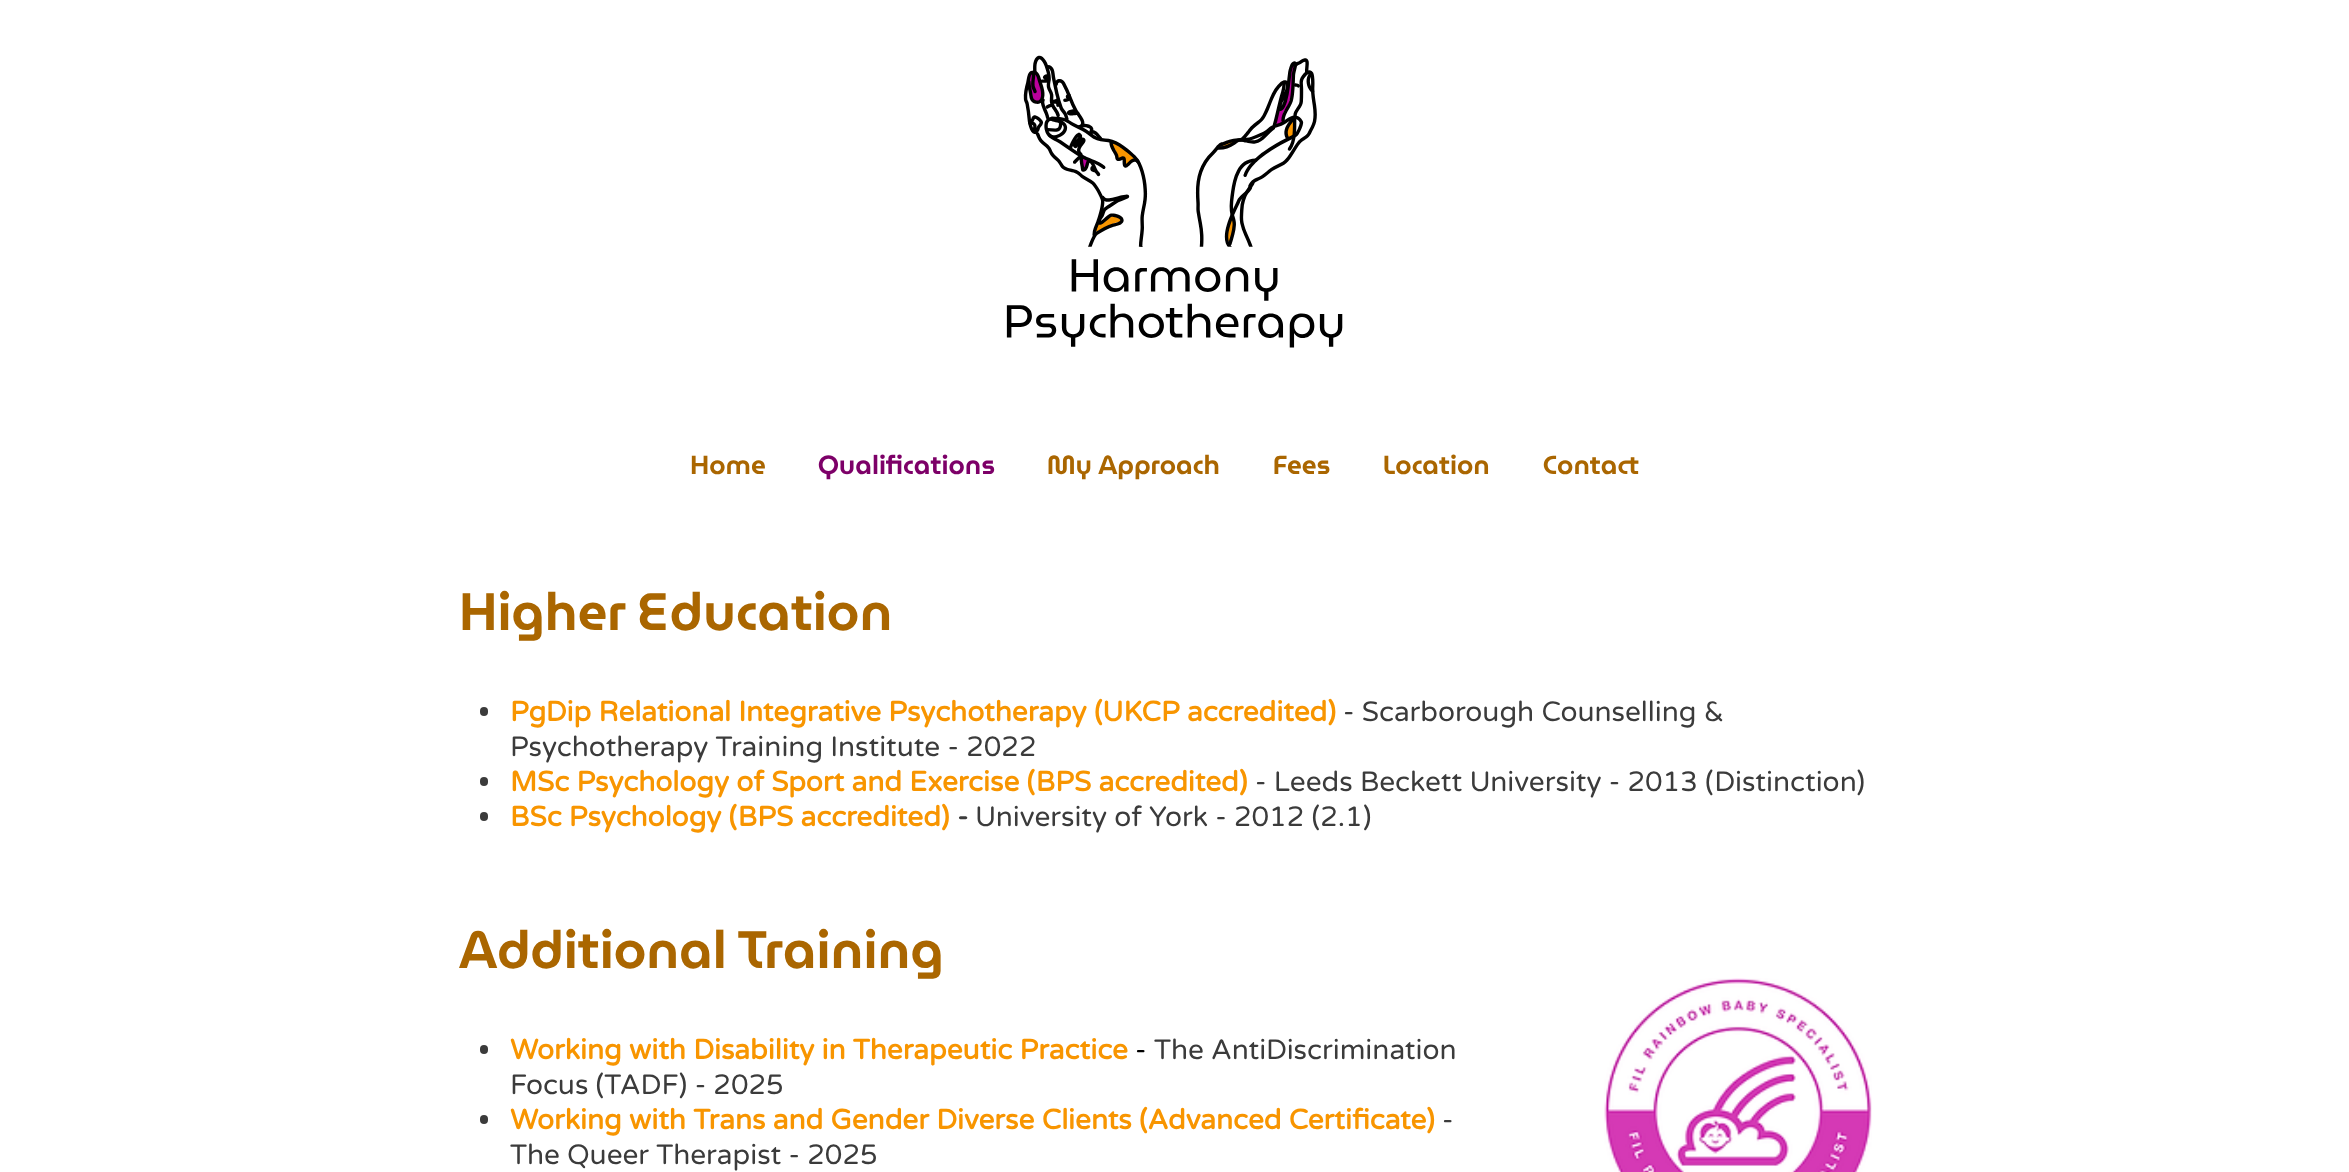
(async () => {
const canvas = document.querySelector("canvas")
canvas.width = 2349
canvas.height = 1172
const c = canvas.getContext("2d")
c.miterLimit = 4
c.fontKerning = "normal"
function T(s,x,y){c.fillText(s,x,y)}
function R(x,y,w,h){c.fillRect(x,y,w,h)}
function Q(x,y,w,h,r){c.beginPath();c.roundRect(x,y,w,h,r);c.fill()}
async function I(src,x,y,w,h){const img=new Image();img.src=src;await img.decode();c.drawImage(img,x,y,w,h)}
c.fillStyle="#fff"
R(0,0,2349,1172)
await I("1.png",1006,55,337,293)
c.font="26.25px MuseoModerno"
c.fillStyle="#a60"
T("Home",690,474)
c.fillStyle="#7d0068"
T("Qualifications",818,474)
c.fillStyle="#a60"
T("My Approach",1047,474)
T("Fees",1273,474)
T("Location",1383,474)
T("Contact",1543,474)
c.font="52.5px MuseoModerno"
T("Higher Education",459,630)
c.fillStyle="#3b3b3b"
Q(480,707,8,9,4)
c.font="bold 28px Varela Round"
c.fillStyle="#f89500"
T("PgDip Relational Integrative Psychotherapy (UKCP accredited)",510,721)
c.font="28px Varela Round"
c.fillStyle="#3b3b3b"
T("- Scarborough Counselling &",1343,721)
T("Psychotherapy Training Institute - 2022",510,756)
Q(480,777,8,9,4)
c.font="bold 28px Varela Round"
c.fillStyle="#f89500"
T("MSc Psychology of Sport and Exercise (BPS accredited)",510,791)
c.font="28px Varela Round"
c.fillStyle="#3b3b3b"
T("- Leeds Beckett University - 2013 (Distinction)",1255,791)
Q(480,812,8,9,4)
c.font="bold 28px Varela Round"
c.fillStyle="#f89500"
T("BSc Psychology (BPS accredited)",510,826)
c.fillStyle="#3b3b3b"
T("-",957,826)
c.font="28px Varela Round"
T("University of York - 2012 (2.1)",975,826)
c.font="52.5px MuseoModerno"
c.fillStyle="#a60"
T("Additional Training",459,968)
c.fillStyle="#3b3b3b"
Q(480,1045,8,9,4)
c.font="bold 28px Varela Round"
c.fillStyle="#f89500"
T("Working with Disability in Therapeutic Practice",510,1059)
c.font="28px Varela Round"
c.fillStyle="#000"
T("-",1135,1059)
c.fillStyle="#3b3b3b"
T("The AntiDiscrimination",1154,1059)
T("Focus (TADF) - 2025",510,1094)
Q(480,1115,8,9,4)
c.font="bold 28px Varela Round"
c.fillStyle="#f89500"
T("Working with Trans and Gender Diverse Clients (Advanced Certificate)",510,1129)
c.font="28px Varela Round"
c.fillStyle="#3b3b3b"
T("-",1442,1129)
T("The Queer Therapist - 2025",510,1164)
await I("2.png",1604,978,268,194)
})()
